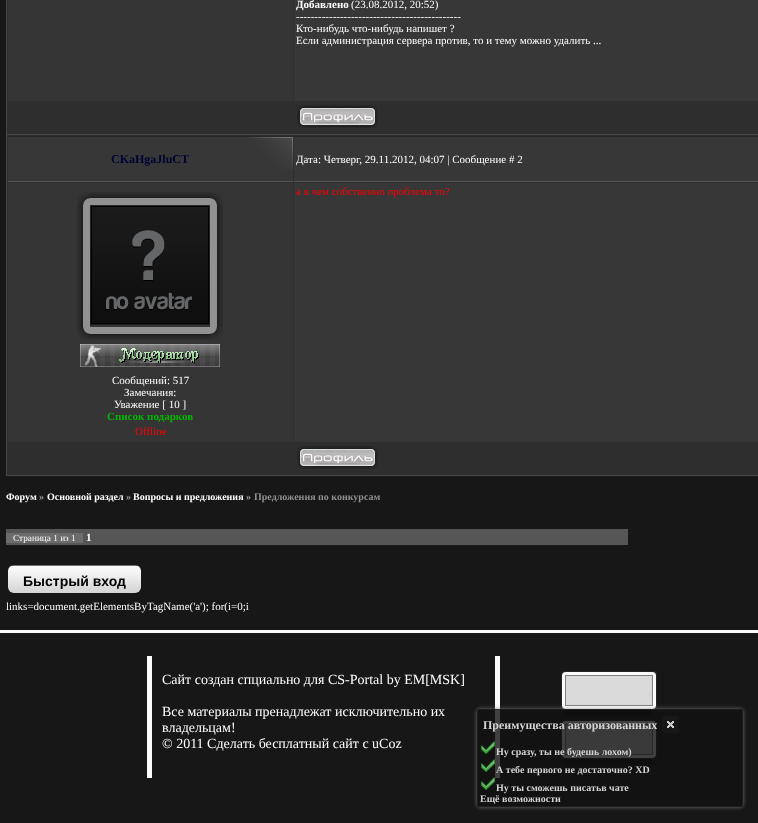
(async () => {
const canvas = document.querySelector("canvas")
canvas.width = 758
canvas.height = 823
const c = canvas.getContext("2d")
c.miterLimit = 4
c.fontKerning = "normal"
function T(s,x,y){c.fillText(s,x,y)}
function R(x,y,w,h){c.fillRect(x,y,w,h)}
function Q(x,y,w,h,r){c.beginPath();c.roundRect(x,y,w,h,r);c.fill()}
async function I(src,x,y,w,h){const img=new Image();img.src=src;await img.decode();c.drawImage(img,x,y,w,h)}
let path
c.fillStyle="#171717"
R(0,0,758,823)
c.fillStyle="#474747"
R(6,0,752,476)
c.fillStyle="#2e2e2e"
R(7,0,751,134)
c.fillStyle="#353535"
R(8,0,285,101)
c.fillStyle="#373737"
R(294,0,464,101)
c.font="bold 11px Liberation Serif"
c.fillStyle="#fff"
T("Добавлено",296,8)
c.font="11px Liberation Serif"
T("(23.08.2012, 20:52)",351,8)
T("---------------------------------------------",296,20)
T("Кто-нибудь что-нибудь напишет ?",296,32)
T("Если администрация сервера против, то и тему можно удалить ...",296,44)
await I("1.png",297,105,81,23)
c.fillStyle="#2e2e2e"
R(7,135,751,340)
c.fillStyle="#373737"
R(8,137,285,44)
await I("2.png",247,137,46,33)
c.fillStyle="#282828"
R(8,136,285,1)
c.fillStyle="#555"
R(8,181,285,1)
c.font="bold 12px Liberation Serif"
c.fillStyle="#003"
T("CKaHgaJluCT",111,163)
c.fillStyle="#373737"
R(294,137,464,44)
c.fillStyle="#282828"
R(294,136,464,1)
c.fillStyle="#555"
R(294,181,464,1)
c.font="11px Liberation Serif"
c.fillStyle="#fff"
T("Дата: Четверг, 29.11.2012, 04:07 | Сообщение # 2",296,163)
c.fillStyle="#373737"
R(294,183,464,259)
c.fillStyle="#f00"
T("а в чем собственно проблема то?",296,195)
c.fillStyle="#353535"
R(8,183,285,259)
await I("3.png",77,192,13,13)
await I("4.png",90,192,120,13)
await I("5.png",210,192,13,13)
await I("6.png",77,205,13,122)
await I("7.png",90,205,120,120)
await I("8.png",210,205,13,122)
await I("9.png",77,327,13,13)
await I("10.png",90,327,120,13)
await I("11.png",210,327,13,13)
await I("12.png",80,344,140,23)
c.fillStyle="#fff"
T("Сообщений: 517",112,384)
T("Замечания:",124,396)
T("Уважение [ 10 ]",114,408)
c.font="bold 11px Liberation Serif"
c.fillStyle="#02b702"
T("Список подарков",107,420)
c.font="11px Liberation Serif"
c.fillStyle="#f00"
T("Offline",135,435)
await I("1.png",297,446,81,23)
c.font="bold 10px Liberation Serif"
c.fillStyle="#fff"
T("Форум",6,500)
c.fillStyle="#999"
T("»",39,500)
c.fillStyle="#fff"
T("Основной раздел",47,500)
c.fillStyle="#999"
T("»",126,500)
c.fillStyle="#fff"
T("Вопросы и предложения",133,500)
c.fillStyle="#999"
T("»",246,500)
c.fillStyle="#919191"
T("Предложения по конкурсам",254,500)
c.fillStyle="#565656"
R(6,529,622,16)
c.fillStyle="#6d6c6c"
R(6,533,77,10)
c.font="9.25px Liberation Serif"
c.fillStyle="#fff"
T("Страница 1 из 1",13,541)
c.font="bold 11px Liberation Serif"
T("1",86,541)
await I("13.png",8,565,133,28)
c.font="bold 14px Liberation Sans"
c.fillStyle="#000"
T("Быстрый вход",23,586)
c.font="11px Liberation Serif"
c.fillStyle="#fff"
T("links=document.getElementsByTagName('a'); for(i=0;i",6,610)
c.fillStyle="#fbfbfb"
R(0,630,758,3)
R(147,656,5,122)
R(495,656,5,122)
c.font="14px Liberation Serif"
c.fillStyle="#fff"
T("Сайт создан спциально для CS-Portal by EM[MSK]",162,684)
T("Все материалы пренадлежат исключительно их",162,716)
T("владельцам!",162,732)
T("© 2011 Сделать бесплатный сайт с uCoz",162,748)
await I("14.png",561,671,96,47)
await I("14.png",561,720,96,47)
c.save()
path = new Path2D("M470 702h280v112h-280zm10 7h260c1.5 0 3 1.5 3 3v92c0 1.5-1.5 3-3 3h-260c-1.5 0-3-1.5-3-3v-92c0-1.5 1.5-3 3-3z")
c.clip(path,"evenodd")
c.fillStyle="#888888cc"
c.filter="blur(2px)"
c.beginPath()
c.roundRect(477,709,266,98,3)
c.fill()
c.filter="none"
c.restore()
c.fillStyle="#111111cc"
Q(477,709,266,98,3)
c.beginPath()
c.roundRect(477.5,709.5,265,97,2.5)
c.strokeStyle="#222222cc"
c.stroke()
c.font="bold 12px Liberation Serif"
c.fillStyle="#d4d4d4"
T("Преимущества авторизованных",483,729)
await I("15.png",662,716,17,17)
await I("16.png",481,741,14,13)
c.font="bold 10px Liberation Serif"
T("Ну сразу, ты не будешь лохом)",496,755)
await I("16.png",481,759,14,13)
T("А тебе первого не достаточно? XD",496,773)
await I("16.png",481,777,14,13)
T("Ну ты сможешь писатьв чате",496,791)
T("Ещё возможности",480,802)
})()
